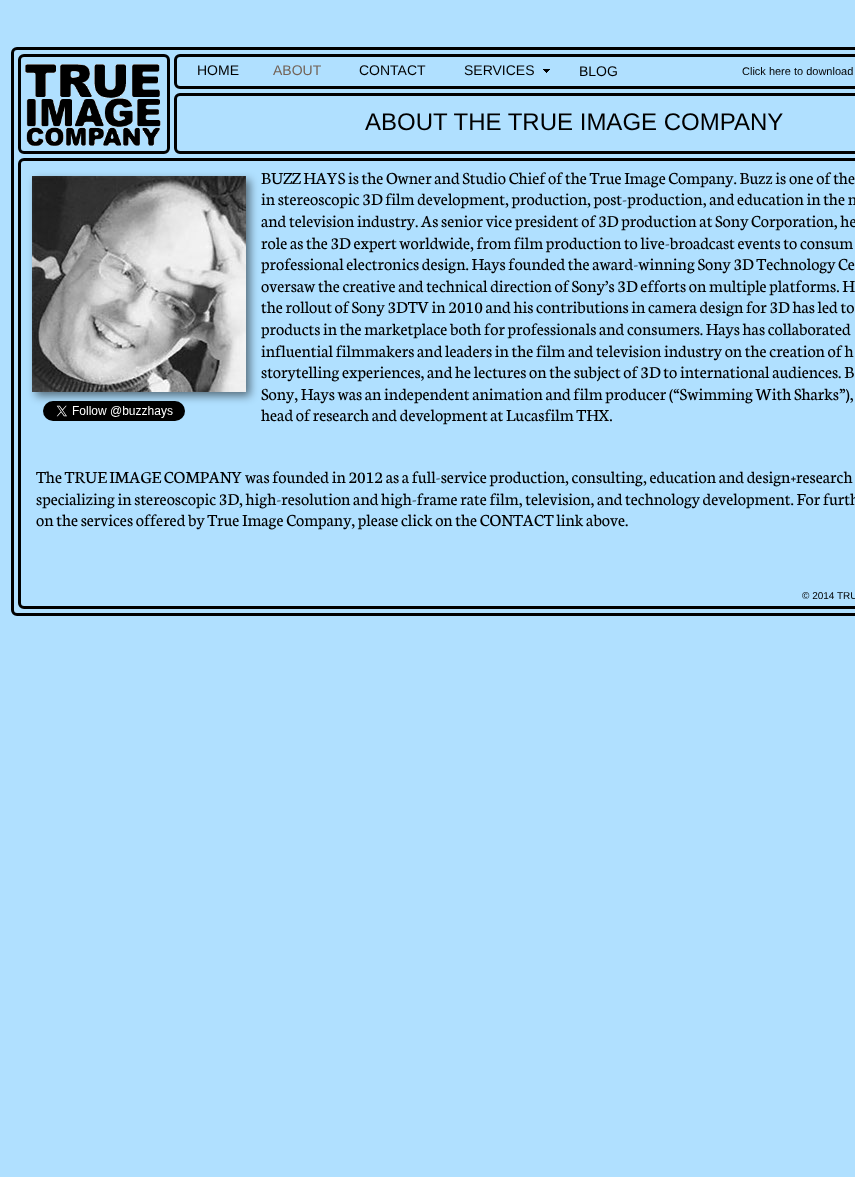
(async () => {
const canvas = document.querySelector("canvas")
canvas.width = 855
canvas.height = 1177
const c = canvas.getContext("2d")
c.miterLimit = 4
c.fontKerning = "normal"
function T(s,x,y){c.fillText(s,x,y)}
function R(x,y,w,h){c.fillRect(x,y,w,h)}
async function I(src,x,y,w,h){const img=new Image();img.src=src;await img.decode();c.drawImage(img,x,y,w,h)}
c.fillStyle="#b0e0ff"
R(0,0,855,1177)
c.beginPath()
c.roundRect(19.5,55.5,149,97,4.5)
c.strokeStyle="#000"
c.lineWidth=3
c.stroke()
await I("1.png",25,64,136,82)
c.beginPath()
c.roundRect(175.5,55.5,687,32,4.5)
c.stroke()
c.beginPath()
c.roundRect(19.5,159.5,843,448,4.5)
c.stroke()
c.beginPath()
c.roundRect(12.5,48.5,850,566,4.5)
c.stroke()
c.font="14px Liberation Sans"
c.fillStyle="#000"
T("HOME",197,75)
c.fillStyle="#736357"
T("ABOUT",273,75)
c.fillStyle="#000"
T("CONTACT",359,75)
T("SERVICES",464,75)
await I("2.png",543,69,7,4)
T("BLOG",579,76)
c.font="11px Liberation Sans"
T("Click here to download",742,75)
c.beginPath()
c.roundRect(175.5,94.5,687,58,4.5)
c.stroke()
c.font="24px Liberation Sans"
T("ABOUT THE TRUE IMAGE COMPANY",365,130)
c.fillStyle="#00000080"
c.filter="blur(4px)"
c.beginPath()
c.rect(36,180,214,216)
c.fill()
c.filter="none"
await I("3.png",32,176,214,216)
c.font="18px Neuton"
c.fillStyle="#000"
T("BUZZ HAYS is the Owner and Studio Chief of the True Image Company. Buzz is one of the",261,184)
T("in stereoscopic 3D film development, production, post-production, and education in the m",261,205)
T("and television industry. As senior vice president of 3D production at Sony Corporation, he",261,227)
T("role as the 3D expert worldwide, from film production to live-broadcast events to consum",261,249)
T("professional electronics design. Hays founded the award-winning Sony 3D Technology Ce",261,270)
T("oversaw the creative and technical direction of Sony’s 3D efforts on multiple platforms. H",261,292)
T("the rollout of Sony 3DTV in 2010 and his contributions in camera design for 3D has led to",261,313)
T("products in the marketplace both for professionals and consumers. Hays has collaborated",261,335)
T("influential filmmakers and leaders in the film and television industry on the creation of h",261,357)
T("storytelling experiences, and he lectures on the subject of 3D to international audiences. B",261,378)
T("Sony, Hays was an independent animation and film producer (“Swimming With Sharks”),",261,400)
T("head of research and development at Lucasfilm THX.",261,421)
T("The TRUE IMAGE COMPANY was founded in 2012 as a full-service production, consulting, education and design+research",36,483)
T("specializing in stereoscopic 3D, high-resolution and high-frame rate film, television, and technology development. For furth",36,505)
T("on the services offered by True Image Company, please click on the CONTACT link above.",36,526)
await I("4.png",43,401,142,20)
c.font="10px Liberation Sans"
T("© 2014 TRU",802,599)
})()
